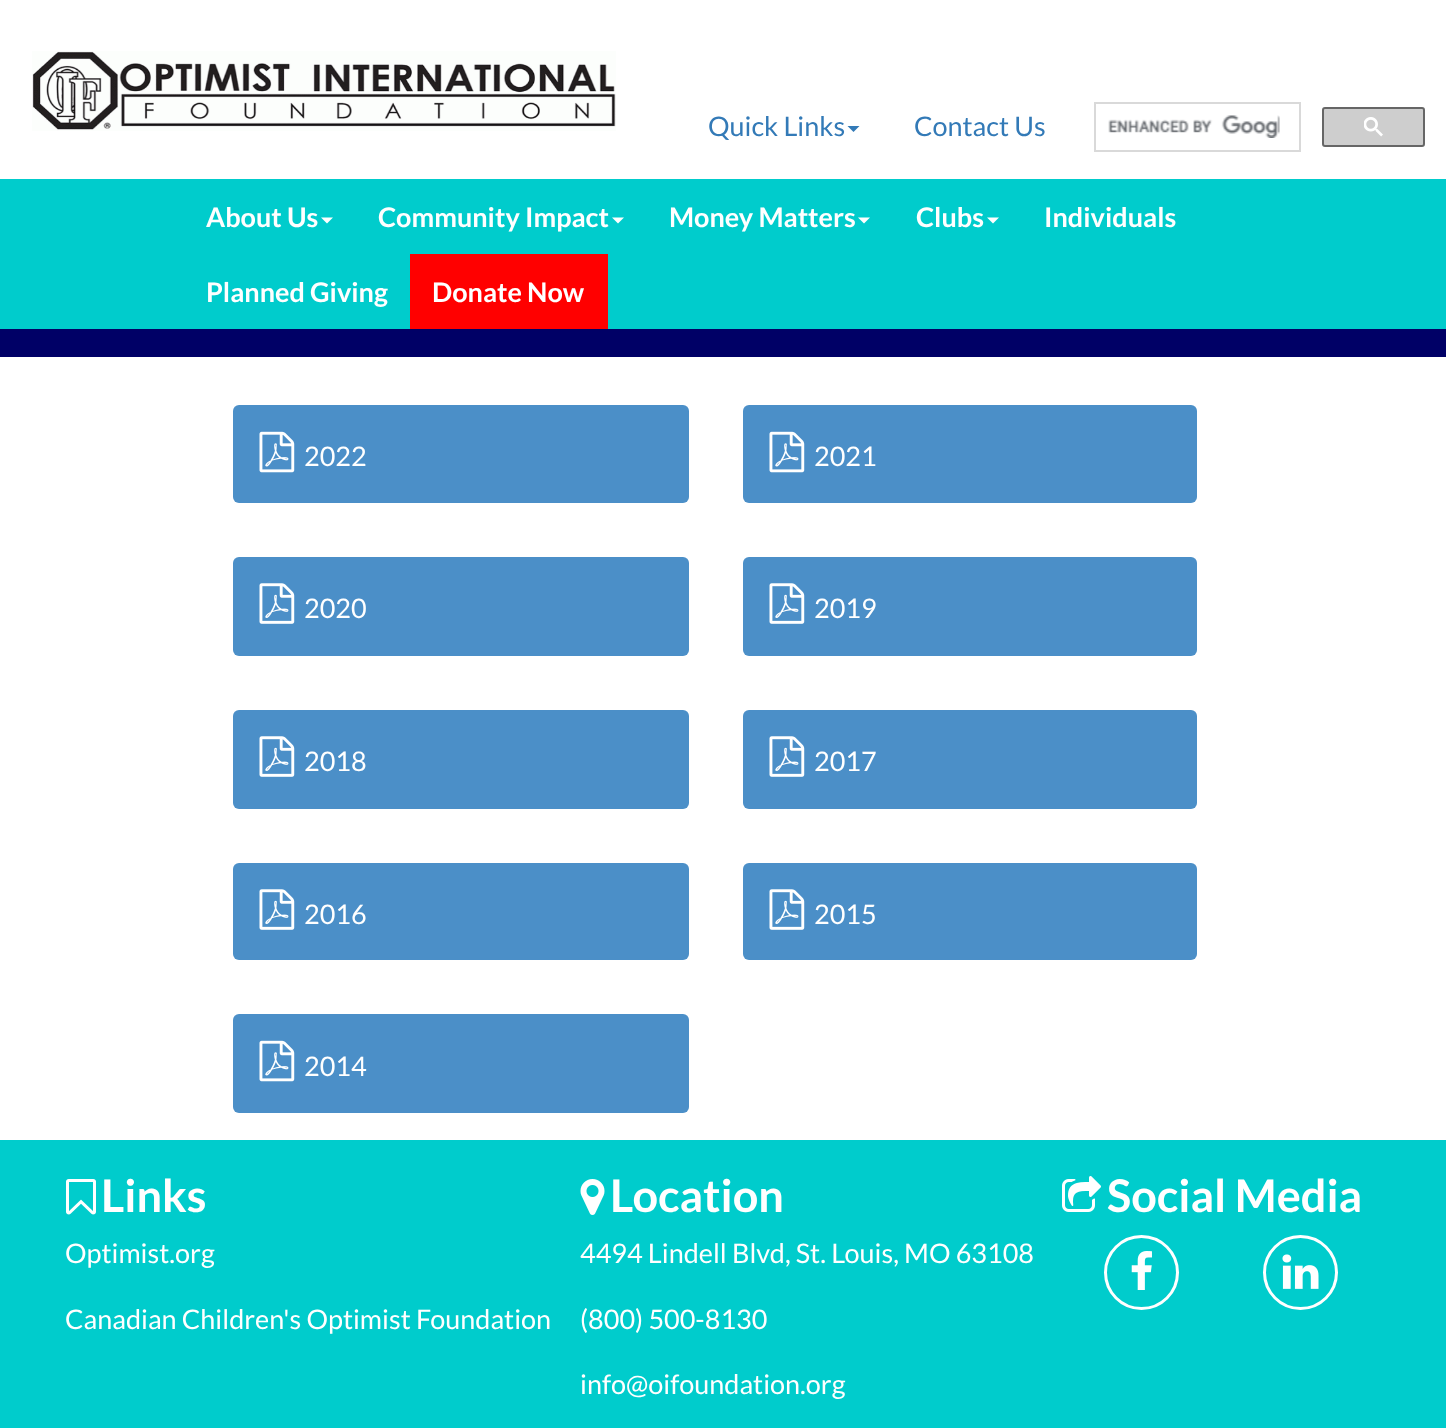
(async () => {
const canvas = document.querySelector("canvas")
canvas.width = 1446
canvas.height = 1428
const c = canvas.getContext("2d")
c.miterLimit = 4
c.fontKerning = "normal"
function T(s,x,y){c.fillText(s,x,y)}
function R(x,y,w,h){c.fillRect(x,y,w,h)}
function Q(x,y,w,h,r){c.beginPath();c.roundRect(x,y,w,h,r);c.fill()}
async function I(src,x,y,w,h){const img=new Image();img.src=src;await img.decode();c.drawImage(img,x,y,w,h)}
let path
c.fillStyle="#fff"
R(0,0,1446,1428)
c.fillStyle="#0cc"
R(0,179,1446,150)
await I("1.png",32,51,584,80)
c.font="27px Lato"
c.fillStyle="#337ab7"
T("Quick Links",708,136)
path = new Path2D("M847.5 126h12l-6 6z")
c.fill(path)
T("Contact Us",914,136)
c.strokeStyle="#d9d9d9"
c.lineWidth=2
c.strokeRect(1095,103,205,48)
await I("2.png",1108,115,172,23)
c.fillStyle="#cecece"
c.beginPath()
c.roundRect(1323,108,101,38,2)
c.fill()
c.strokeStyle="#666"
c.stroke()
await I("3.png",1364,117,19,20)
c.font="bold 27px Lato"
c.fillStyle="#fff"
T("About Us",206,227)
path = new Path2D("M321 217.5h12l-6 6z")
c.fill(path)
T("Community Impact",378,227)
path = new Path2D("M612 217.5h12l-6 6z")
c.fill(path)
T("Money Matters",669,227)
path = new Path2D("M858 217.5h12l-6 6z")
c.fill(path)
T("Clubs",916,227)
path = new Path2D("M987 217.5h12l-6 6z")
c.fill(path)
T("Individuals",1044,227)
T("Planned Giving",206,302)
c.fillStyle="#f00"
R(410,254,198,75)
c.fillStyle="#fff"
T("Donate Now",432,302)
c.fillStyle="#006"
R(0,329,1446,28)
c.fillStyle="#4b8fc8"
Q(233,405,456,98,6)
await I("4.png",259,431,36,42)
c.font="27px Lato"
c.fillStyle="#fff"
T("2022",304,466)
c.fillStyle="#4b8fc8"
Q(743,405,454,98,6)
await I("4.png",769,431,36,42)
c.fillStyle="#fff"
T("2021",814,466)
c.fillStyle="#4b8fc8"
Q(233,557,456,99,6)
await I("5.png",259,583,36,41)
c.fillStyle="#fff"
T("2020",304,618)
c.fillStyle="#4b8fc8"
Q(743,557,454,99,6)
await I("5.png",769,583,36,41)
c.fillStyle="#fff"
T("2019",814,618)
c.fillStyle="#4b8fc8"
Q(233,710,456,99,6)
await I("5.png",259,736,36,41)
c.fillStyle="#fff"
T("2018",304,771)
c.fillStyle="#4b8fc8"
Q(743,710,454,99,6)
await I("5.png",769,736,36,41)
c.fillStyle="#fff"
T("2017",814,771)
c.fillStyle="#4b8fc8"
Q(233,863,456,97,6)
await I("5.png",259,889,36,41)
c.fillStyle="#fff"
T("2016",304,924)
c.fillStyle="#4b8fc8"
Q(743,863,454,97,6)
await I("5.png",769,889,36,41)
c.fillStyle="#fff"
T("2015",814,924)
c.fillStyle="#4b8fc8"
Q(233,1014,456,99,6)
await I("4.png",259,1040,36,42)
c.fillStyle="#fff"
T("2014",304,1076)
c.fillStyle="#0cc"
R(0,1140,1446,288)
await I("6.png",66,1179,30,36)
c.font="bold 45px Lato"
c.fillStyle="#fff"
T("Links",101,1212)
c.font="27px Lato"
T("Optimist.org",65,1263)
T("Canadian Children's Optimist Foundation",65,1329)
await I("7.png",580,1179,25,36)
c.font="bold 45px Lato"
T("Location",610,1212)
c.font="27px Lato"
T("4494 Lindell Blvd, St. Louis, MO 63108",580,1263)
T("(800) 500-8130",580,1329)
T("info@oifoundation.org",580,1394)
await I("8.png",1062,1176,39,36)
c.font="bold 45px Lato"
T("Social Media",1107,1212)
c.beginPath()
c.arc(1141.5,1272.5,36,0,7)
c.strokeStyle="#fff"
c.lineWidth=3
c.stroke()
await I("9.png",1131,1251,21,39)
c.beginPath()
c.arc(1300.5,1272.5,36,0,7)
c.stroke()
await I("10.png",1282,1254,37,35)
})()
